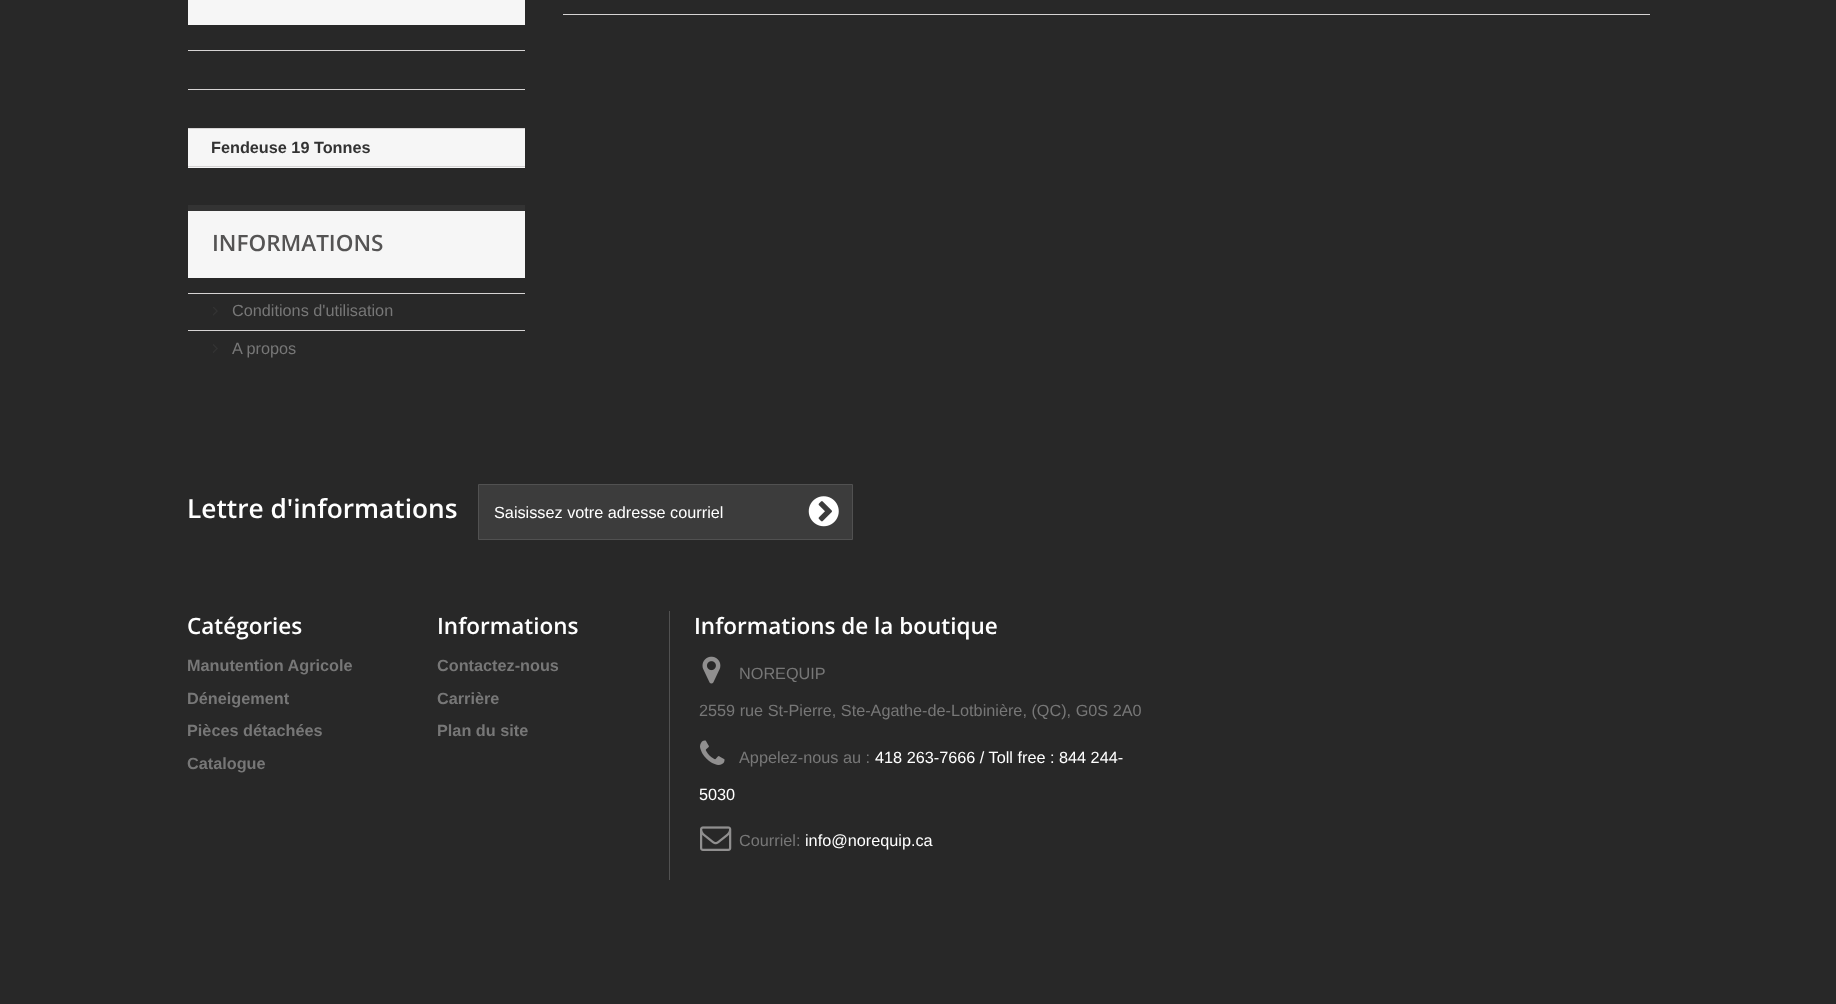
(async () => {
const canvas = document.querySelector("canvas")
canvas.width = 1836
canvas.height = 1004
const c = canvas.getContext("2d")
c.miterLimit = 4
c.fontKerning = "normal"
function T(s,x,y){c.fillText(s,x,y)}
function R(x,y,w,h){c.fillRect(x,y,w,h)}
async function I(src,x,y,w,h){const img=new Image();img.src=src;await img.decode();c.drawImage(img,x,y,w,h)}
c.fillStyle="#282828"
R(0,0,1836,1004)
c.fillStyle="#d6d4d4"
R(563,14,1087,1)
c.fillStyle="#f6f6f6"
R(188,0,337,25)
c.fillStyle="#d6d4d4"
R(188,50,337,1)
R(188,89,337,1)
R(188,128,337,1)
c.fillStyle="#f6f6f6"
R(188,129,337,39)
c.fillStyle="#d6d4d4"
R(188,166,337,1)
c.font="bold 16.25px Liberation Sans"
c.fillStyle="#333"
T("Fendeuse 19 Tonnes",211,153)
c.fillStyle="#f6f6f6"
R(188,211,337,67)
c.fillStyle="#333"
R(188,205,337,6)
c.font="600 22.5px Open Sans"
c.fillStyle="#555454"
T("INFORMATIONS",212,251)
c.fillStyle="#d6d4d4"
R(188,293,337,1)
await I("1.png",213,307,5,9)
c.font="16.25px Liberation Sans"
c.fillStyle="#777"
T("Conditions d'utilisation",232,316)
c.fillStyle="#d6d4d4"
R(188,330,337,1)
await I("2.png",213,344,5,9)
c.fillStyle="#777"
T("A propos",232,354)
c.font="600 26.25px Open Sans"
c.fillStyle="#fff"
T("Lettre d'informations",187,518)
c.fillStyle="#3c3c3c"
c.beginPath()
c.rect(478.5,484.5,374,55)
c.fill()
c.strokeStyle="#515151"
c.stroke()
c.font="16.25px Liberation Sans"
c.fillStyle="#fff"
T("Saisissez votre adresse courriel",494,518)
await I("3.png",808,496,31,31)
c.font="600 22.5px Open Sans"
T("Catégories",187,634)
c.font="bold 16.25px Liberation Sans"
c.fillStyle="#777"
T("Manutention Agricole",187,671)
T("Déneigement",187,704)
T("Pièces détachées",187,736)
T("Catalogue",187,769)
c.font="600 22.5px Open Sans"
c.fillStyle="#fff"
T("Informations",437,634)
c.font="bold 16.25px Liberation Sans"
c.fillStyle="#777"
T("Contactez-nous",437,671)
T("Carrière",437,704)
T("Plan du site",437,736)
c.fillStyle="#515151"
R(669,611,1,269)
c.font="600 22.5px Open Sans"
c.fillStyle="#fff"
T("Informations de la boutique",694,634)
await I("4.png",702,656,19,28)
c.font="16.25px Liberation Sans"
c.fillStyle="#777"
T("NOREQUIP",739,679)
T("2559 rue St-Pierre, Ste-Agathe-de-Lotbinière, (QC), G0S 2A0",699,716)
await I("5.png",700,740,25,25)
T("Appelez-nous au :",739,763)
c.fillStyle="#fff"
T("418 263-7666 / Toll free : 844 244-",875,763)
T("5030",699,800)
await I("6.png",700,826,32,25)
c.fillStyle="#777"
T("Courriel:",739,846)
c.fillStyle="#fff"
T("info@norequip.ca",805,846)
})()
